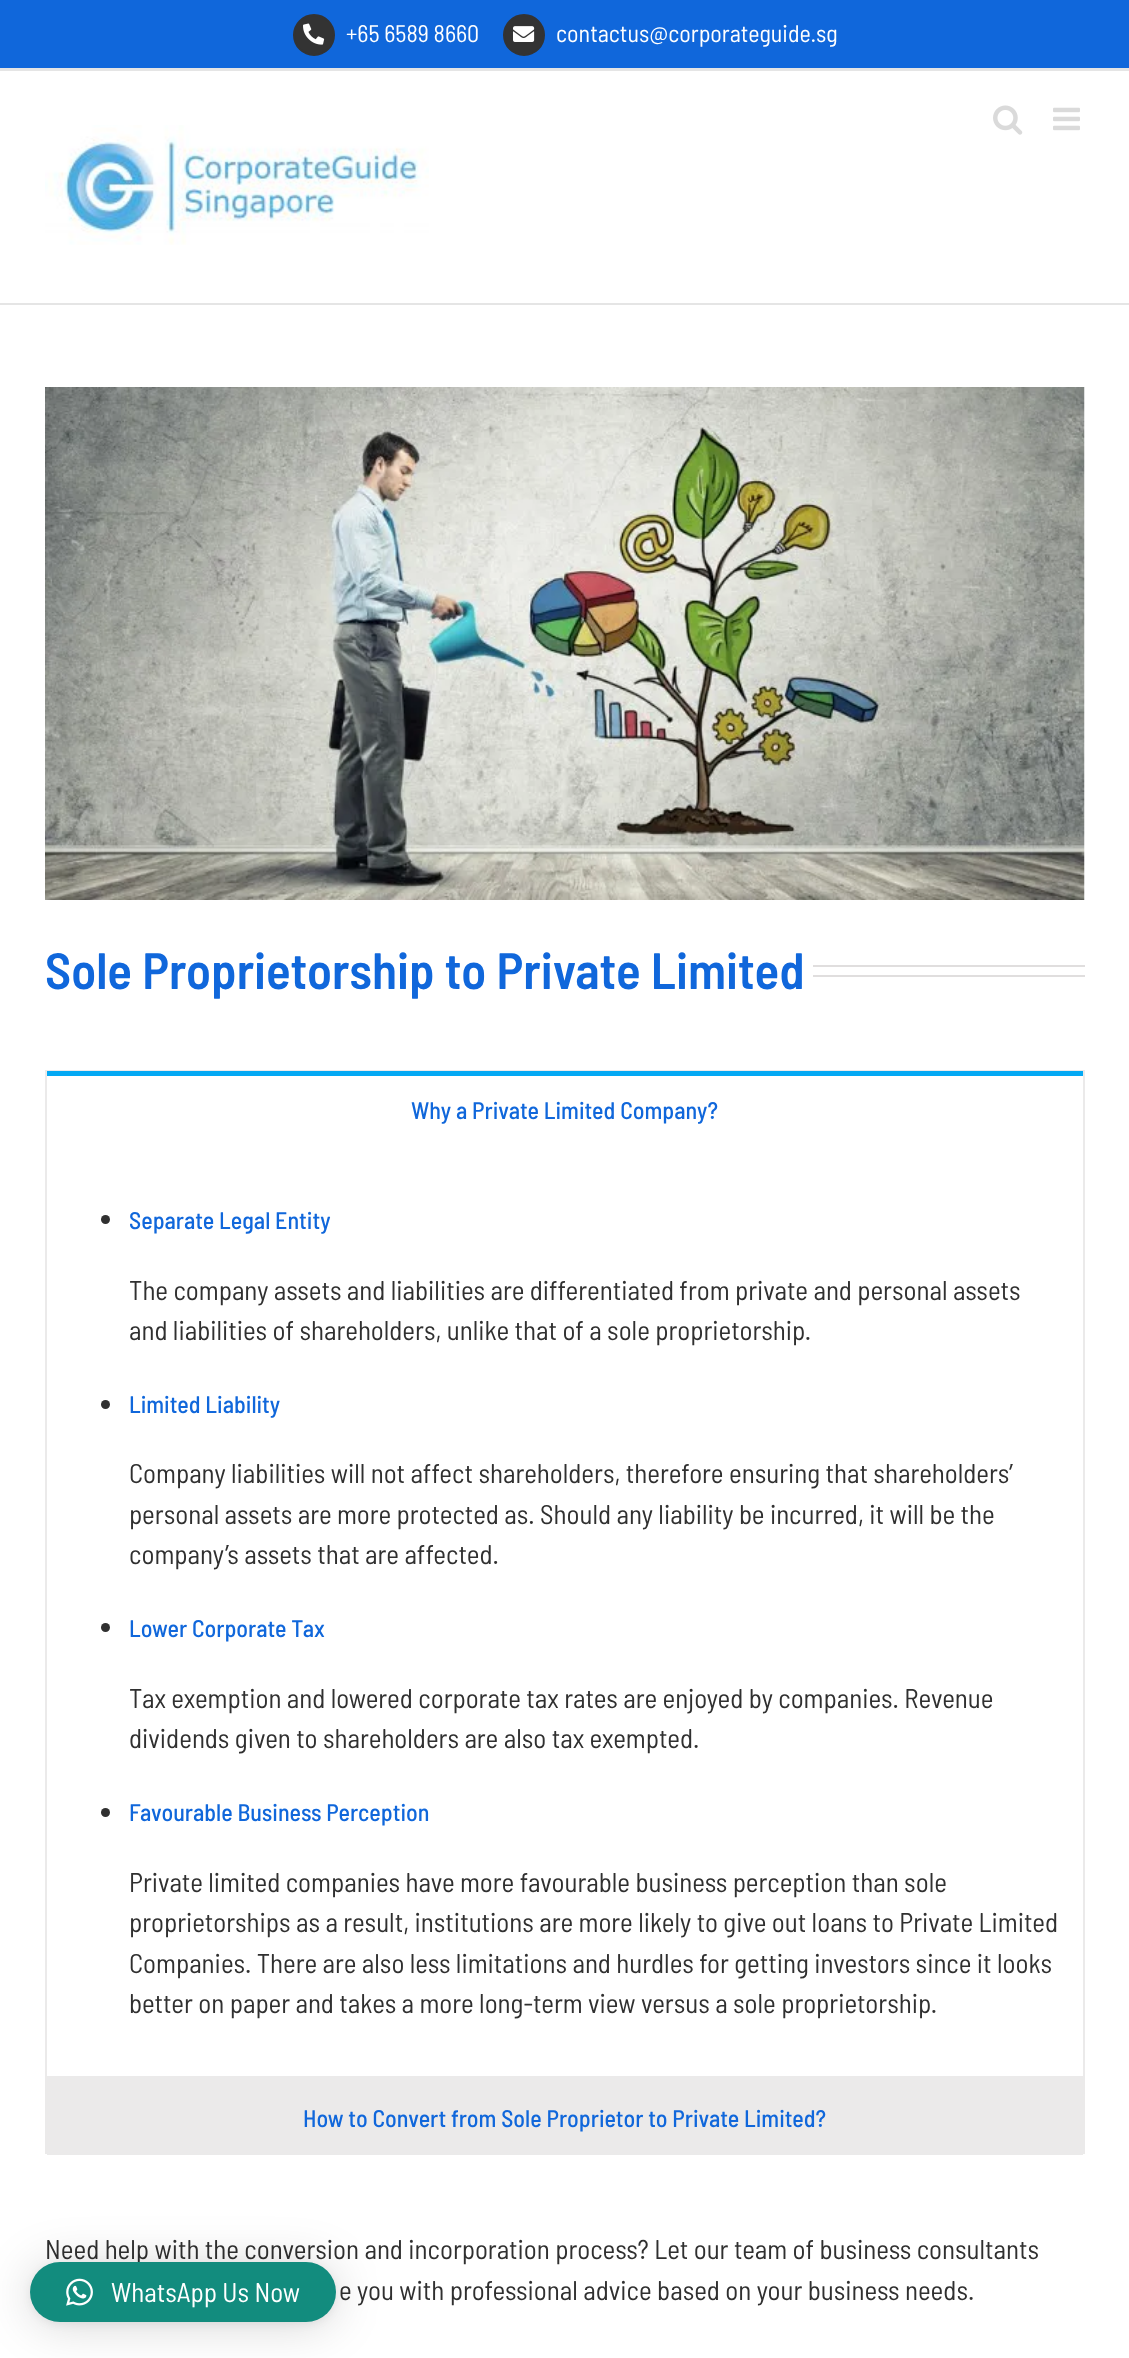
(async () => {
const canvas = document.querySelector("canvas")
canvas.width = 1129
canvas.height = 2358
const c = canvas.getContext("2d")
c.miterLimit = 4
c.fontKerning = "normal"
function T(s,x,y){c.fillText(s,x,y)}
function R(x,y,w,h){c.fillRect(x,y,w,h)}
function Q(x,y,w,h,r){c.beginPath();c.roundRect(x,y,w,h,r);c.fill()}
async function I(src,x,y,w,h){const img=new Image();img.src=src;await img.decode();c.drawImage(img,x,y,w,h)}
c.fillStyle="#fff"
R(0,0,1129,2358)
c.fillStyle="#1067db"
R(0,0,1129,68)
c.fillStyle="#e5e5e5"
R(0,68,1129,3)
c.fillStyle="#333"
c.beginPath()
c.arc(314,35,20,0,7)
c.fill()
c.strokeStyle="#333"
c.lineWidth=2
c.stroke()
await I("1.png",303,23,22,22)
c.font="24px Barlow Semi Condensed"
c.fillStyle="#fff"
T("+65 6589 8660",346,42)
c.fillStyle="#333"
c.beginPath()
c.arc(524,35,20,0,7)
c.fill()
c.stroke()
await I("2.png",513,26,22,16)
c.fillStyle="#fff"
T("contactus@corporateguide.sg",556,42)
c.fillStyle="#e5e5e5"
R(0,303,1129,2)
await I("3.png",993,105,30,30)
await I("4.png",1053,107,27,24)
await I("5.png",45,125,384,120)
await I("6.png",45,387,1040,513)
c.font="600 51px Barlow Semi Condensed"
c.fillStyle="#1067db"
T("Sole Proprietorship to Private Limited",45,989)
c.fillStyle="#e0dede"
R(813,965,272,2)
R(813,975,272,2)
c.fillStyle="#ebeaea"
R(45,1070,1040,1)
R(1083,1070,2,1008)
R(45,1070,2,75)
c.fillStyle="#03a9f4"
R(47,1071,1036,5)
c.font="500 24px Barlow Semi Condensed"
c.fillStyle="#1067db"
T("Why a Private Limited Company?",411,1119)
c.fillStyle="#ebeaea"
R(45,2076,1040,3)
R(45,1145,2,1009)
c.fillStyle="#303030"
c.beginPath()
c.arc(105.5,1219.5,4.5,0,7)
c.fill()
c.fillStyle="#1067db"
T("Separate Legal Entity",129,1229)
c.font="27px Barlow Semi Condensed"
c.fillStyle="#303030"
T("The company assets and liabilities are differentiated from private and personal assets",129,1300)
T("and liabilities of shareholders, unlike that of a sole proprietorship.",129,1340)
c.beginPath()
c.arc(105.5,1404.5,4.5,0,7)
c.fill()
c.font="500 24px Barlow Semi Condensed"
c.fillStyle="#1067db"
T("Limited Liability",129,1413)
c.font="27px Barlow Semi Condensed"
c.fillStyle="#303030"
T("Company liabilities will not affect shareholders, therefore ensuring that shareholders’",129,1483)
T("personal assets are more protected as. Should any liability be incurred, it will be the",129,1524)
T("company’s assets that are affected.",129,1564)
c.beginPath()
c.arc(105.5,1627.5,4.5,0,7)
c.fill()
c.font="500 24px Barlow Semi Condensed"
c.fillStyle="#1067db"
T("Lower Corporate Tax",129,1637)
c.font="27px Barlow Semi Condensed"
c.fillStyle="#303030"
T("Tax exemption and lowered corporate tax rates are enjoyed by companies. Revenue",129,1708)
T("dividends given to shareholders are also tax exempted.",129,1748)
c.beginPath()
c.arc(105.5,1812.5,4.5,0,7)
c.fill()
c.font="500 24px Barlow Semi Condensed"
c.fillStyle="#1067db"
T("Favourable Business Perception",129,1821)
c.font="27px Barlow Semi Condensed"
c.fillStyle="#303030"
T("Private limited companies have more favourable business perception than sole",129,1892)
T("proprietorships as a result, institutions are more likely to give out loans to Private Limited",129,1932)
T("Companies. There are also less limitations and hurdles for getting investors since it looks",129,1973)
T("better on paper and takes a more long-term view versus a sole proprietorship.",129,2013)
c.fillStyle="#ebeaea"
R(1083,2078,2,76)
R(47,2079,1036,76)
c.font="500 24px Barlow Semi Condensed"
c.fillStyle="#1067db"
T("How to Convert from Sole Proprietor to Private Limited?",303,2127)
c.font="27px Barlow Semi Condensed"
c.fillStyle="#303030"
T("Need help with the conversion and incorporation process? Let our team of business consultants",45,2259)
T("e you with professional advice based on your business needs.",339,2300)
c.fillStyle="#00000029"
c.filter="blur(24px)"
c.beginPath()
c.roundRect(30,2265,306,60,30)
c.fill()
c.filter="none"
c.fillStyle="#0000000f"
c.filter="blur(4.5px)"
c.beginPath()
c.roundRect(30,2264,306,60,30)
c.fill()
c.filter="none"
c.fillStyle="#128c7e"
Q(30,2262,306,60,30)
await I("7.png",66,2278,27,28)
c.fillStyle="#fff"
T("WhatsApp Us Now",111,2302)
})()
